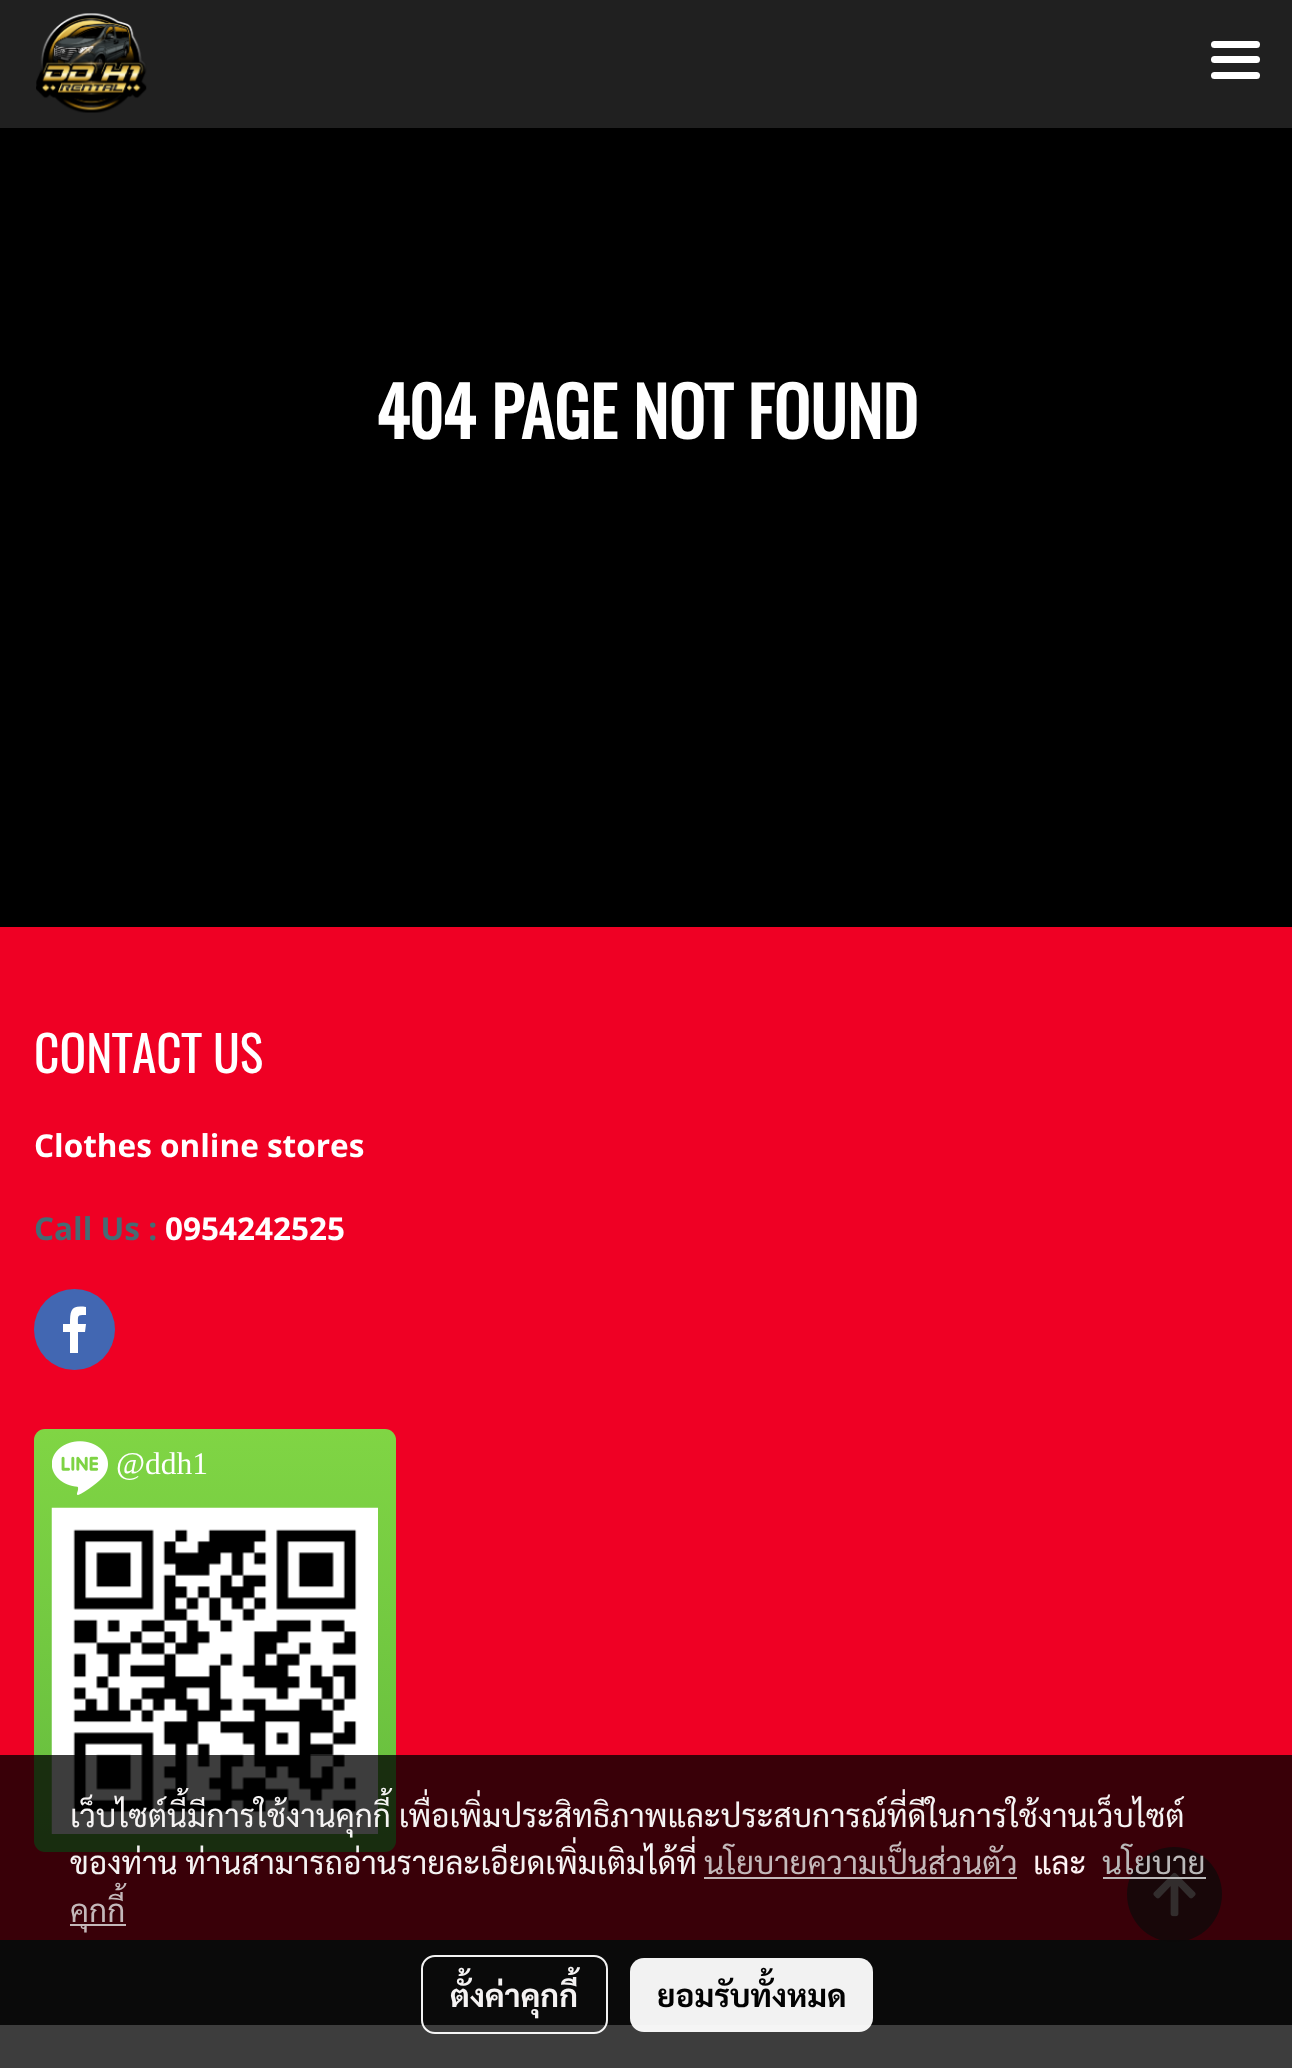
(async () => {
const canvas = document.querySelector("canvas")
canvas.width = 1292
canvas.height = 2068
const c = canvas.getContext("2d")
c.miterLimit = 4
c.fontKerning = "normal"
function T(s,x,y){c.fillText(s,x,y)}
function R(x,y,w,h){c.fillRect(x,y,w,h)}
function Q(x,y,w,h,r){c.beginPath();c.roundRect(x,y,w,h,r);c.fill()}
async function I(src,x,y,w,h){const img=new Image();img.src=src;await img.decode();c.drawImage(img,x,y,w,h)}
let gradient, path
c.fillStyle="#000"
R(0,0,1292,2068)
c.fillStyle="#202020"
R(0,0,1292,128)
await I("1.png",36,13,111,100)
c.fillStyle="#fff"
Q(1211,56,49,7,3.5)
Q(1211,41,49,7,3.5)
Q(1211,72,49,7,3.5)
c.font="bold 67.5px Oswald"
T("404 PAGE NOT FOUND",376,439)
c.fillStyle="#ef0024"
R(0,927,1292,1013)
c.font="49.5px Oswald"
c.fillStyle="#fff"
T("CONTACT US",34,1073)
c.font="bold 31.5px Open Sans"
T("Clothes online stores",34,1157)
c.fillStyle="#466b74"
T("Call Us :",34,1240)
c.fillStyle="#fff"
T("0954242525",165,1240)
c.fillStyle="#4267b2"
c.beginPath()
c.arc(74.5,1329.5,40.5,0,7)
c.fill()
c.fillStyle="#fff"
path = new Path2D("M70 1353v-21h-7v-8h7c0-14 1-19 16-17v8c-9 0-8 0-8 9h8l-1 8h-7v21")
c.fill(path)
gradient = c.createLinearGradient(215,1429,215,1852)
gradient.addColorStop(0,"#80d544")
gradient.addColorStop(1,"#65bc3e")
c.fillStyle = gradient
Q(34,1429,362,423,11)
await I("2.png",52,1441,56,54)
c.font="31.5px Liberation Serif"
c.fillStyle="#fff"
T("@ddh1",116,1474)
await I("3.png",51,1507,327,327)
c.fillStyle="#2b2b2b"
R(0,1940,1292,85)
c.fillStyle="#fff"
R(0,2025,1292,43)
c.fillStyle="#2b2a2ab3"
path = new Path2D("M1174 1847c-26 0-47 21-47 47c0 27 21 48 47 48c27 0 48-21 48-48c0-26-21-47-48-47z")
c.fill(path)
await I("4.png",1153,1872,43,45)
c.fillStyle="#000000c2"
R(0,1755,1292,313)
c.font="31.5px Sarabun"
c.fillStyle="#f5f3f3"
T("เว็บไซต์นี้มีการใช้งานคุกกี้ เพื่อเพิ่มประสิทธิภาพและประสบการณ์ที่ดีในการใช้งานเว็บไซต์",70,1827)
T("ของท่าน ท่านสามารถอ่านรายละเอียดเพิ่มเติมได้ที่",70,1874)
c.fillStyle="#c4b8ba"
T("นโยบายความเป็นส่วนตัว",704,1874)
R(704,1877,313,2)
c.fillStyle="#fef2f4"
T("และ",1033,1874)
c.fillStyle="#bab9b9"
T("นโยบาย",1102,1874)
c.fillStyle="#c2c2c2f2"
R(1103,1877,103,2)
c.fillStyle="#c4b8ba"
R(70,1924,56,2)
T("คุกกี้",70,1922)
c.beginPath()
c.roundRect(422,1956,185,77,13)
c.strokeStyle="#fffffff2"
c.lineWidth=2
c.stroke()
c.font="bold 31.5px Sarabun"
c.fillStyle="#f5f3f3"
T("ตั้งค่าคุกกี้",450,2007)
c.fillStyle="#fffffff2"
Q(630,1958,243,74,14)
c.fillStyle="#020202"
T("ยอมรับทั้งหมด",657,2007)
})()
